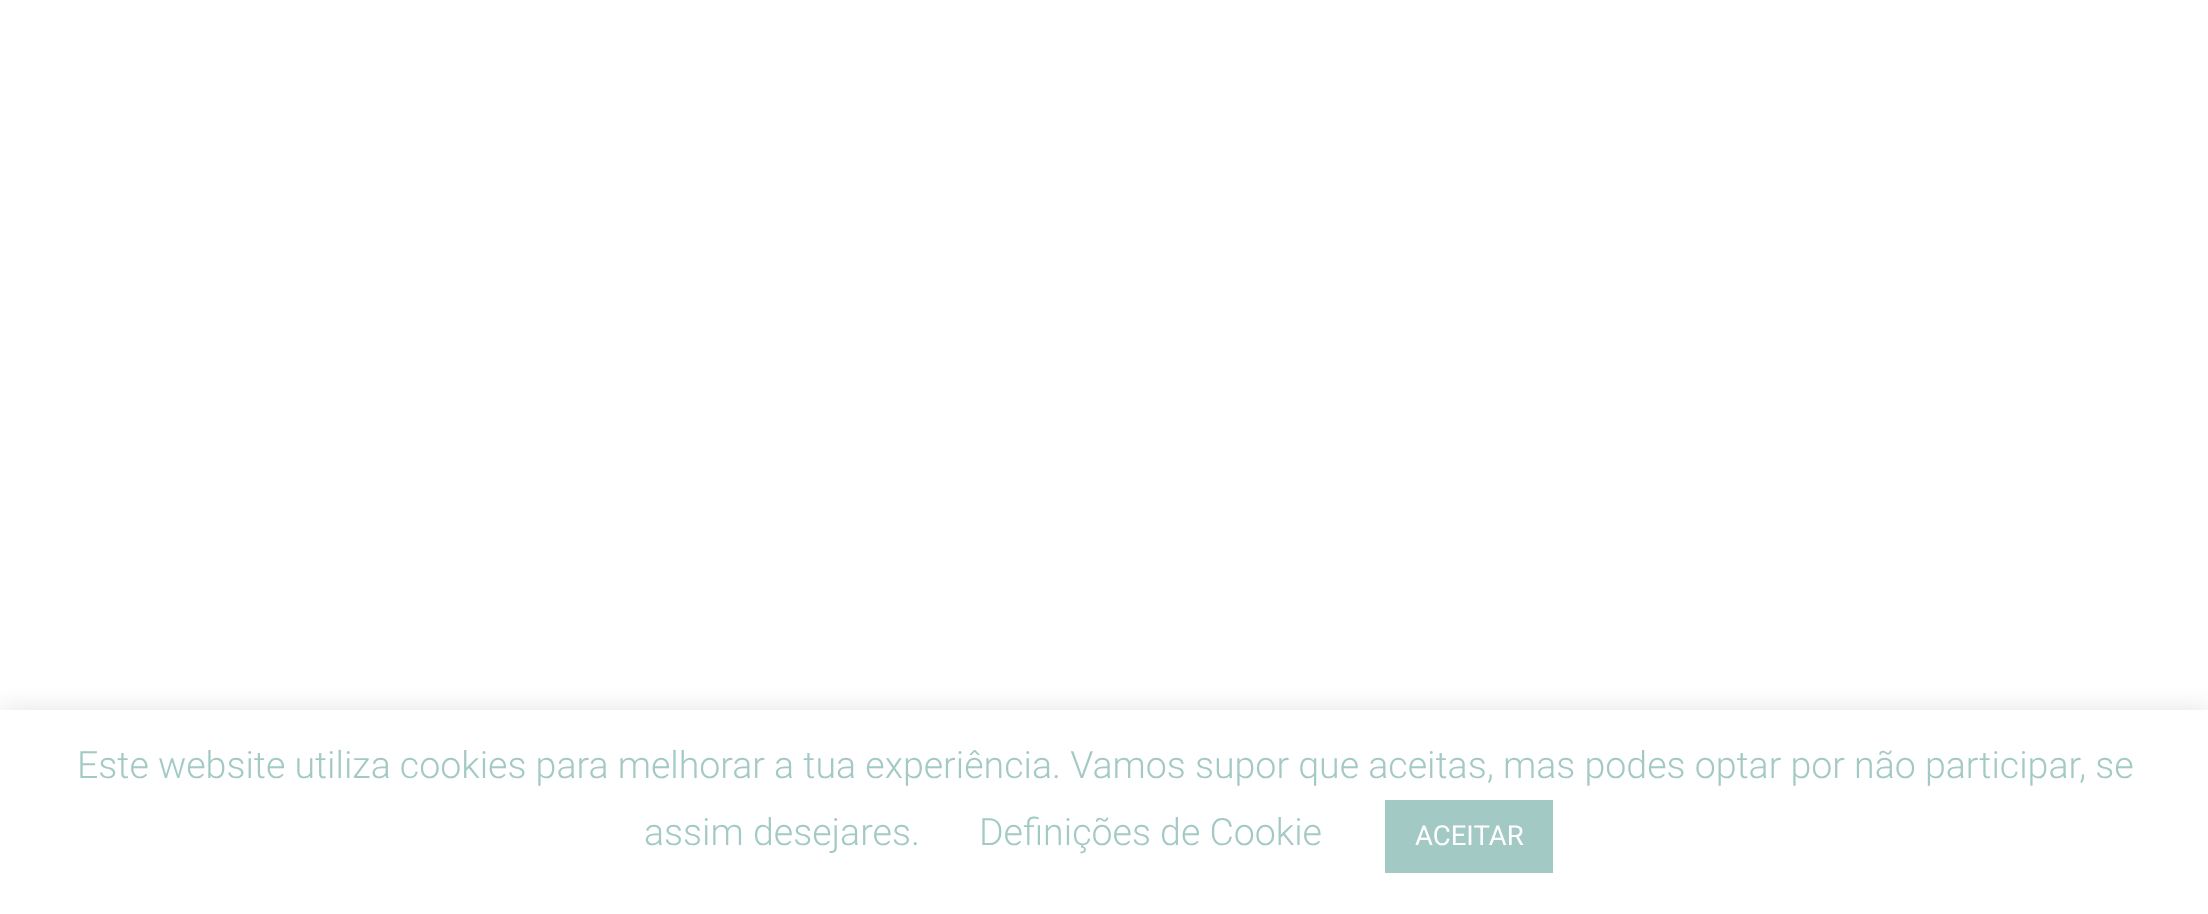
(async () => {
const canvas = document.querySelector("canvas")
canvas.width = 2208
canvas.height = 914
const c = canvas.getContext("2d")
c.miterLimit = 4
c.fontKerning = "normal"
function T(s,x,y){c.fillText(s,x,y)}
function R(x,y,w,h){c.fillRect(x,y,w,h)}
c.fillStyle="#fff"
R(0,0,2208,914)
c.fillStyle="#acabab4d"
c.filter="blur(12.5px)"
c.beginPath()
c.rect(0,708,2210,205)
c.fill()
c.filter="none"
c.fillStyle="#fff"
R(0,710,2208,204)
c.font="300 37.5px Roboto"
c.fillStyle="#a3c9c5"
T("Este website utiliza cookies para melhorar a tua experiência. Vamos supor que aceitas, mas podes optar por não participar, se",77,778)
T("assim desejares.",644,845)
T("Definições de Cookie",979,845)
R(1385,800,168,73)
c.font="27.5px Roboto"
c.fillStyle="#fff"
T("ACEITAR",1415,845)
})()
